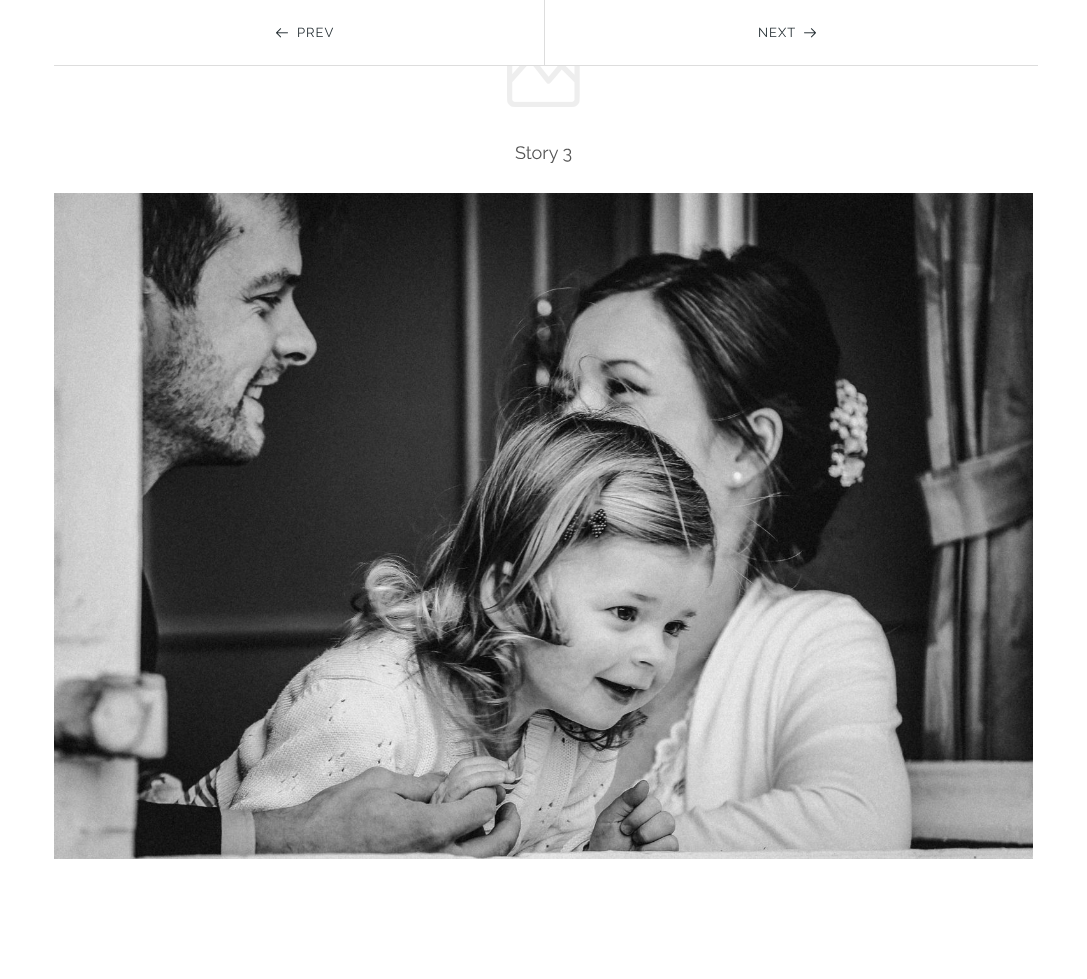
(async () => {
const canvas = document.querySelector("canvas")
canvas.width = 1087
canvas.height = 979
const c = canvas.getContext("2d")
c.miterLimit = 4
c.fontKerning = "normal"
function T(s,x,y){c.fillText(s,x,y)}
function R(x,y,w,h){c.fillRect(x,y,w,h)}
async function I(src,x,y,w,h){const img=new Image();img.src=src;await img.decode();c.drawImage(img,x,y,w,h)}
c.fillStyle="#fff"
R(0,0,1087,979)
c.fillStyle="#ddd"
R(54,65,984,1)
await I("1.png",276,28,12,10)
c.letterSpacing="1px"
c.font="13px Raleway"
c.fillStyle="#1c262b"
T("PREV",297,37)
c.fillStyle="#ddd"
R(544,0,1,66)
c.fillStyle="#1c262b"
T("NEXT",758,37)
await I("2.png",804,28,12,10)
await I("3.png",507,66,73,41)
c.letterSpacing="0px"
c.font="18px Raleway"
c.fillStyle="#555"
T("Story 3",515,159)
await I("4.png",54,193,979,666)
})()
